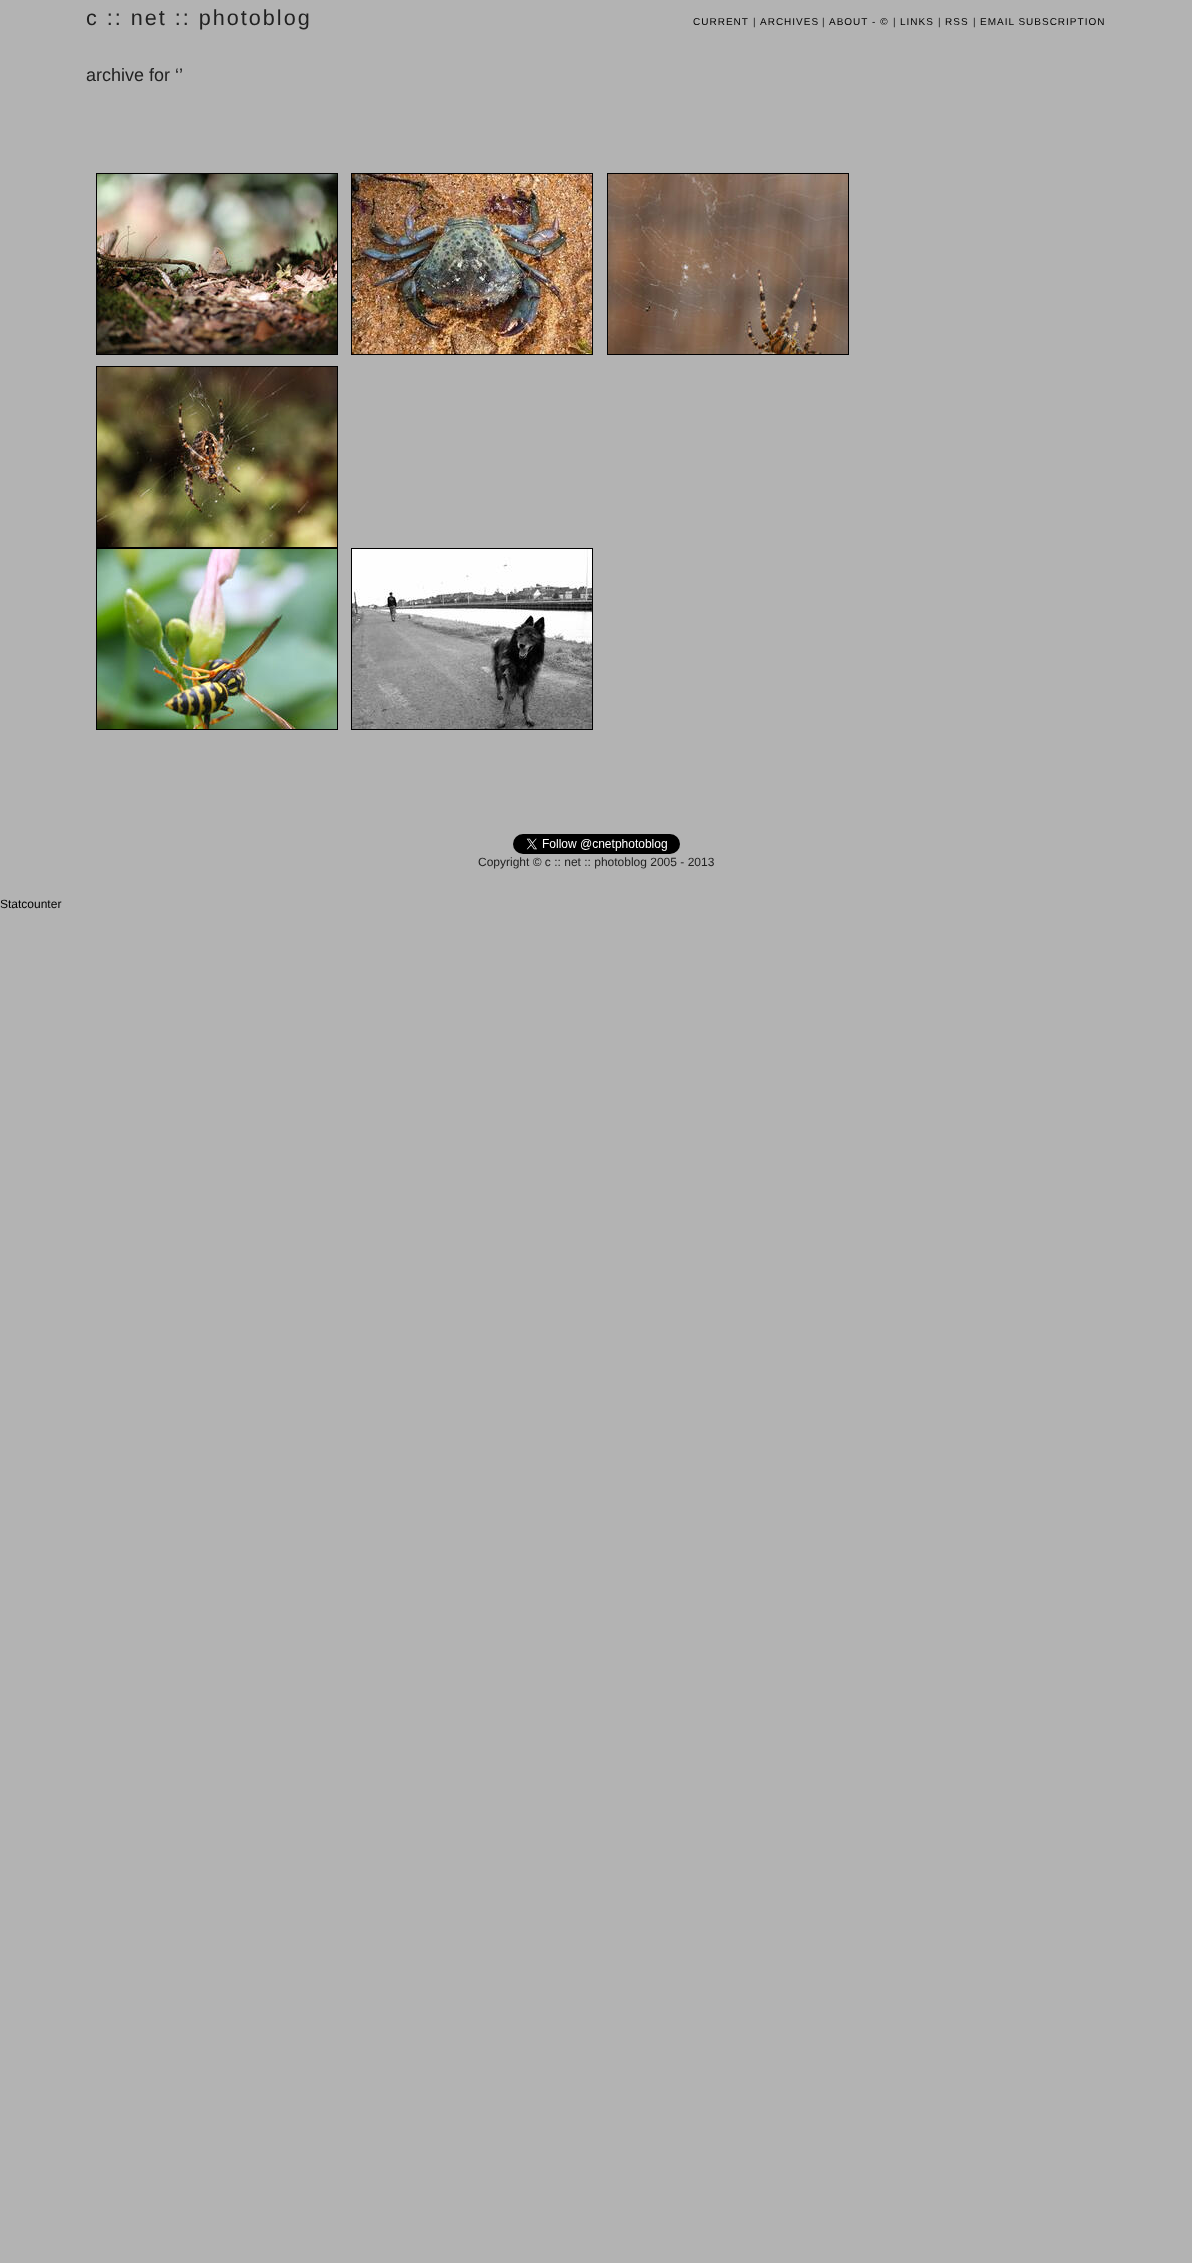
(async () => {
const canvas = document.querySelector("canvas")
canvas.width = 1192
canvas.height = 2263
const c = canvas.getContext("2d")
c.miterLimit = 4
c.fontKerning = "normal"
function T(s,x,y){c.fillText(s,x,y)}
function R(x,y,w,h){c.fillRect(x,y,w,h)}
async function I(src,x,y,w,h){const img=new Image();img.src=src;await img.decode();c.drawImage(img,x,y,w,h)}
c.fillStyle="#b3b3b3"
R(0,0,1192,2263)
c.letterSpacing="2px"
c.font="21.6px Liberation Sans"
c.fillStyle="#222"
T("c :: net :: photoblog",86,25)
c.letterSpacing="1px"
c.font="10px Liberation Sans"
c.fillStyle="#000"
T("CURRENT",693,25)
c.fillStyle="#222"
T("|",753,25)
c.fillStyle="#000"
T("ARCHIVES",760,25)
c.fillStyle="#222"
T("|",822,25)
c.fillStyle="#000"
T("ABOUT - ©",829,25)
c.fillStyle="#222"
T("|",893,25)
c.fillStyle="#000"
T("LINKS",900,25)
c.fillStyle="#222"
T("|",938,25)
c.fillStyle="#000"
T("RSS",945,25)
c.fillStyle="#222"
T("|",973,25)
c.fillStyle="#000"
T("EMAIL SUBSCRIPTION",980,25)
c.letterSpacing="0px"
c.font="18px Liberation Sans"
c.fillStyle="#222"
T("archive for ‘’",86,81)
c.strokeStyle="#000"
c.strokeRect(96.5,173.5,241,181)
c.strokeRect(351.5,173.5,241,181)
c.strokeRect(607.5,173.5,241,181)
await I("1.png",97,174,240,180)
await I("2.png",352,174,240,180)
await I("3.png",608,174,240,180)
c.strokeRect(96.5,366.5,241,181)
await I("4.png",97,367,240,180)
c.strokeRect(96.5,548.5,241,181)
c.strokeRect(351.5,548.5,241,181)
await I("5.png",97,549,240,180)
await I("6.png",352,549,240,180)
await I("7.png",513,834,167,20)
c.font="12px Liberation Sans"
T("Copyright © c :: net :: photoblog 2005 - 2013",478,866)
c.fillStyle="#000"
T("Statcounter",0,908)
})()
